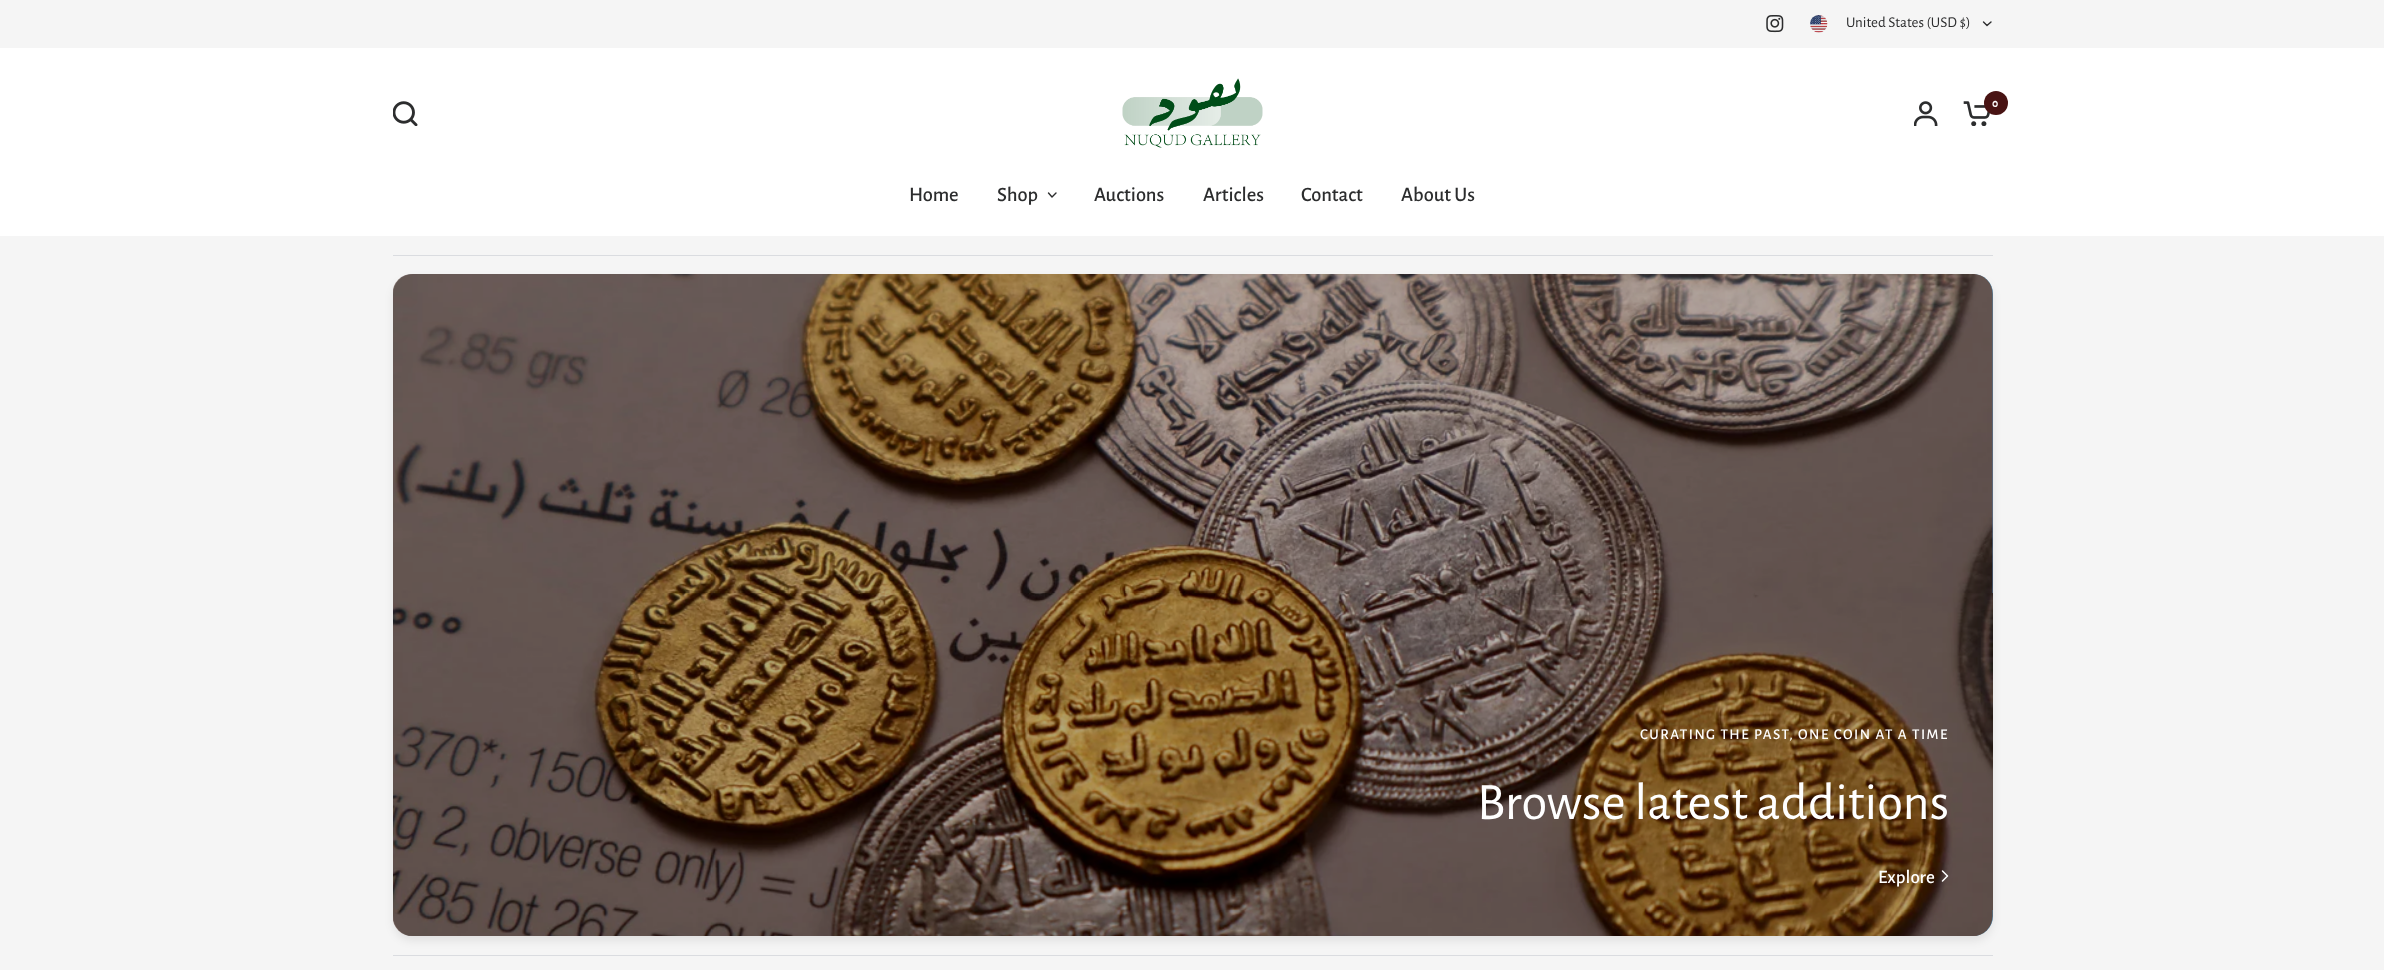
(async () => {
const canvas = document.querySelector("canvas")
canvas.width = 2384
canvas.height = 970
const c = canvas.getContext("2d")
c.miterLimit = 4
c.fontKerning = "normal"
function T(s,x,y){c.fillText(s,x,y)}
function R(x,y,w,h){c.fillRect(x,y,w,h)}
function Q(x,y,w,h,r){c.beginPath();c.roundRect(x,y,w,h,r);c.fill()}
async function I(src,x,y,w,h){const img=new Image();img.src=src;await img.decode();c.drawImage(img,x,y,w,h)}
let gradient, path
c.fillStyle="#f5f5f5"
R(0,0,2384,970)
await I("1.png",1766,15,18,18)
await I("2.png",1810,15,18,18)
c.font="15px Alegreya Sans"
c.fillStyle="#2c2d2e"
T("United States (USD $)",1846,27)
path = new Path2D("M1991 22l-4 3.5l-3.5-3.5")
c.strokeStyle="#2c2d2e"
c.lineWidth=1.4
c.lineCap="round"
c.lineJoin="round"
c.stroke(path)
c.fillStyle="#fff"
R(0,48,2384,188)
await I("3.png",393,101,25,25)
await I("4.png",1122,78,141,70)
await I("5.png",1914,101,24,25)
await I("6.png",1963,101,27,25)
c.fillStyle="#481313"
c.beginPath()
c.arc(1996,103,12,0,7)
c.fill()
c.font="bold 12px Alegreya Sans"
c.fillStyle="#fff"
T("0",1992,107)
c.font="500 20.5px Alegreya Sans"
c.fillStyle="#2c2d2e"
T("Home",909,201)
T("Shop",997,201)
path = new Path2D("M1056 193l-4 4l-3.5-4")
c.stroke(path)
T("Auctions",1094,201)
T("Articles",1203,201)
T("Contact",1301,201)
T("About Us",1401,201)
c.fillStyle="#dadce0"
R(393,255,1600,1)
c.fillStyle="#00000014"
c.filter="blur(4px)"
c.beginPath()
c.roundRect(393,279,1600,662,20)
c.fill()
c.filter="none"
gradient = c.createRadialGradient(1193,1462.08,0,1193,1462.08,1131)
gradient.addColorStop(0,"#898fef")
gradient.addColorStop(1,"#78c4f5")
c.fillStyle = gradient
c.beginPath()
c.roundRect(393,274,1600,662,20)
c.save()
c.clip()
c.scale(1,468 / 1131)
c.fillRect(0,0,2384,2345)
c.restore()
await I("7.png",393,274,1600,662)
c.fillStyle="#0000004f"
Q(393,274,1600,662,20)
c.letterSpacing="1.5px"
c.font="500 15px Alegreya Sans"
c.fillStyle="#fff"
T("CURATING THE PAST, ONE COIN AT A TIME",1640,739)
c.letterSpacing="0px"
c.font="52.5px Alegreya Sans"
T("Browse latest additions",1477,819)
c.font="500 19px Alegreya Sans"
T("Explore",1878,883)
path = new Path2D("M1942.5 871l5 5l-5 5")
c.strokeStyle="#fff"
c.lineWidth=1.5
c.stroke(path)
c.fillStyle="#dadce0"
R(393,955,1600,1)
})()
